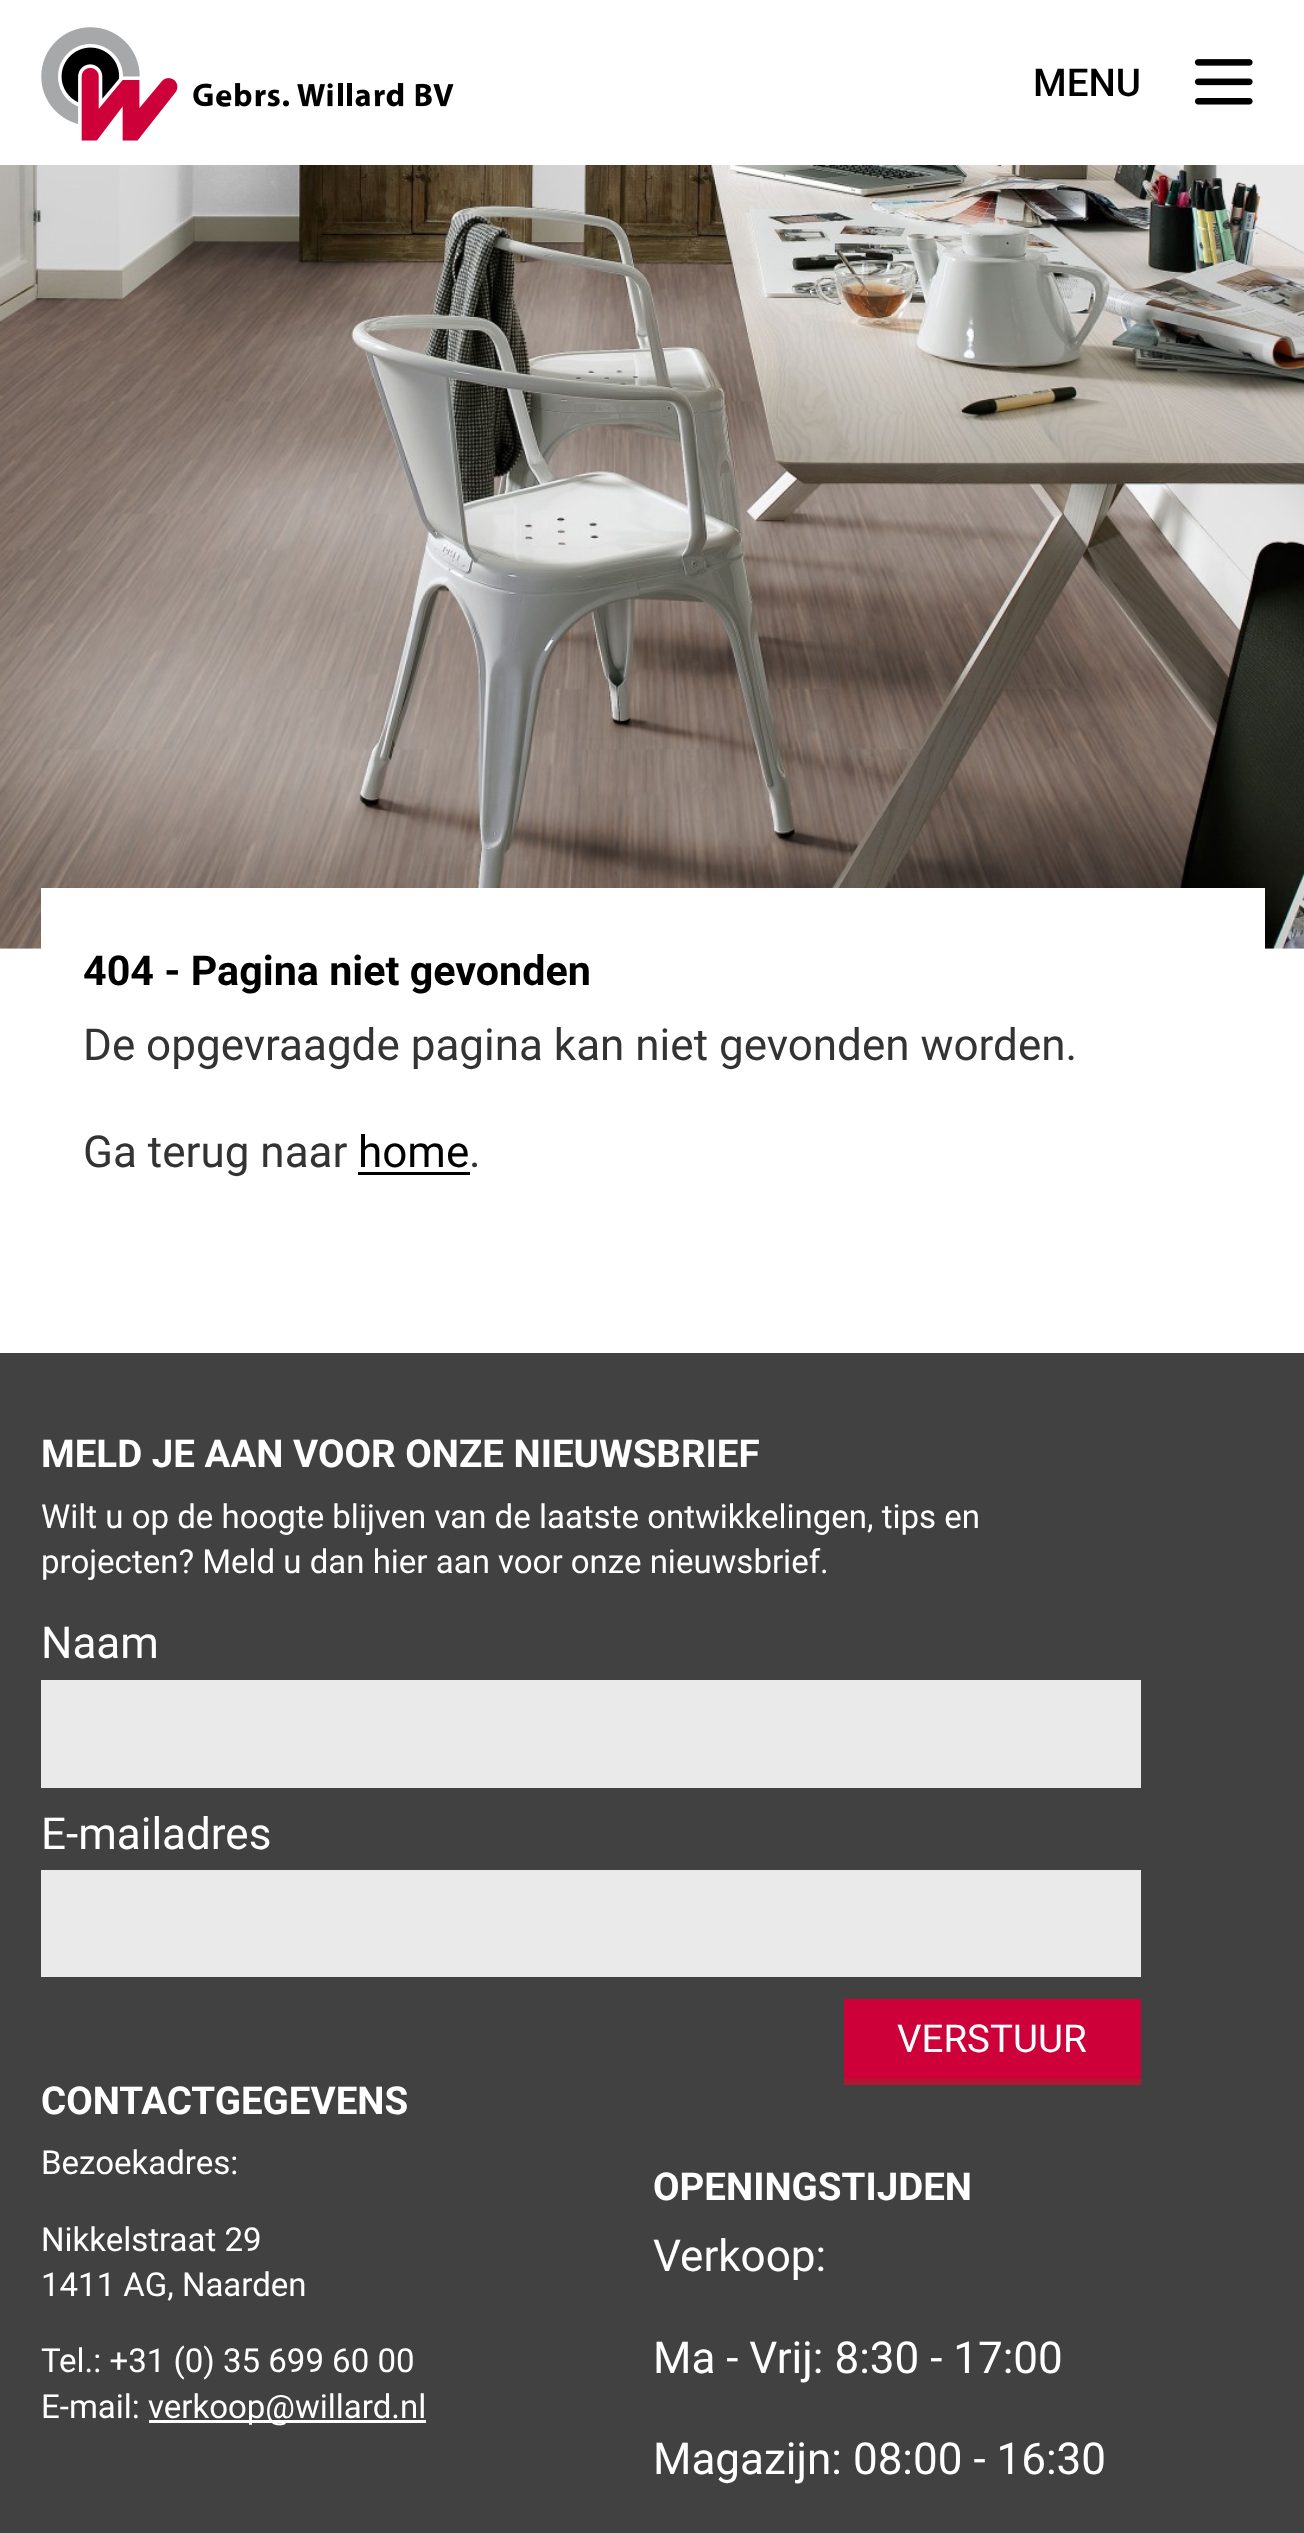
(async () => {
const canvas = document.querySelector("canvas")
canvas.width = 1304
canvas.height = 2533
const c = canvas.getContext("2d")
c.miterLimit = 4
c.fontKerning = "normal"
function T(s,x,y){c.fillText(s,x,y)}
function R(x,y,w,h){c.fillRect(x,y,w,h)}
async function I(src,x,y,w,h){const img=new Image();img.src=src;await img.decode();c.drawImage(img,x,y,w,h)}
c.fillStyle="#fff"
R(0,0,1304,2533)
await I("1.png",41,27,413,114)
c.font="500 38.5px Roboto"
c.fillStyle="#000"
T("MENU",1033,96)
await I("2.png",1194,59,59,46)
await I("3.png",0,165,1304,784)
c.fillStyle="#fff"
R(41,888,1224,61)
c.font="bold 41.25px Roboto"
c.fillStyle="#000"
T("404 - Pagina niet gevonden",83,985)
c.font="44px Roboto"
c.fillStyle="#333"
T("De opgevraagde pagina kan niet gevonden worden.",83,1060)
T("Ga terug naar",83,1167)
c.fillStyle="#000"
T("home",358,1167)
R(358,1172,112,3)
c.fillStyle="#333"
T(".",469,1167)
c.fillStyle="#414141"
R(0,1353,1304,1180)
c.font="bold 38.5px Roboto"
c.fillStyle="#fff"
T("MELD JE AAN VOOR ONZE NIEUWSBRIEF",41,1467)
c.font="33px Roboto"
T("Wilt u op de hoogte blijven van de laatste ontwikkelingen, tips en",41,1528)
T("projecten? Meld u dan hier aan voor onze nieuwsbrief.",41,1573)
c.font="44px Roboto"
T("Naam",41,1658)
c.fillStyle="#eaeaea"
R(41,1680,1100,108)
c.fillStyle="#fff"
T("E-mailadres",41,1849)
c.fillStyle="#eaeaea"
R(41,1870,1100,107)
c.fillStyle="#cd0039"
R(844,1999,297,80)
c.fillStyle="#b01832"
R(844,2079,297,6)
c.font="38.5px Roboto"
c.fillStyle="#fff"
T("VERSTUUR",897,2052)
c.font="bold 38.5px Roboto"
T("CONTACTGEGEVENS",41,2114)
c.font="33px Roboto"
T("Bezoekadres:",41,2174)
T("Nikkelstraat 29",41,2251)
T("1411 AG, Naarden",41,2296)
T("Tel.: +31 (0) 35 699 60 00",41,2372)
T("E-mail:",41,2418)
R(149,2420,277,3)
T("verkoop@willard.nl",148,2418)
c.font="bold 38.5px Roboto"
T("OPENINGSTIJDEN",653,2200)
c.font="44px Roboto"
T("Verkoop:",653,2271)
T("Ma - Vrij: 8:30 - 17:00",653,2373)
T("Magazijn: 08:00 - 16:30",653,2474)
})()
